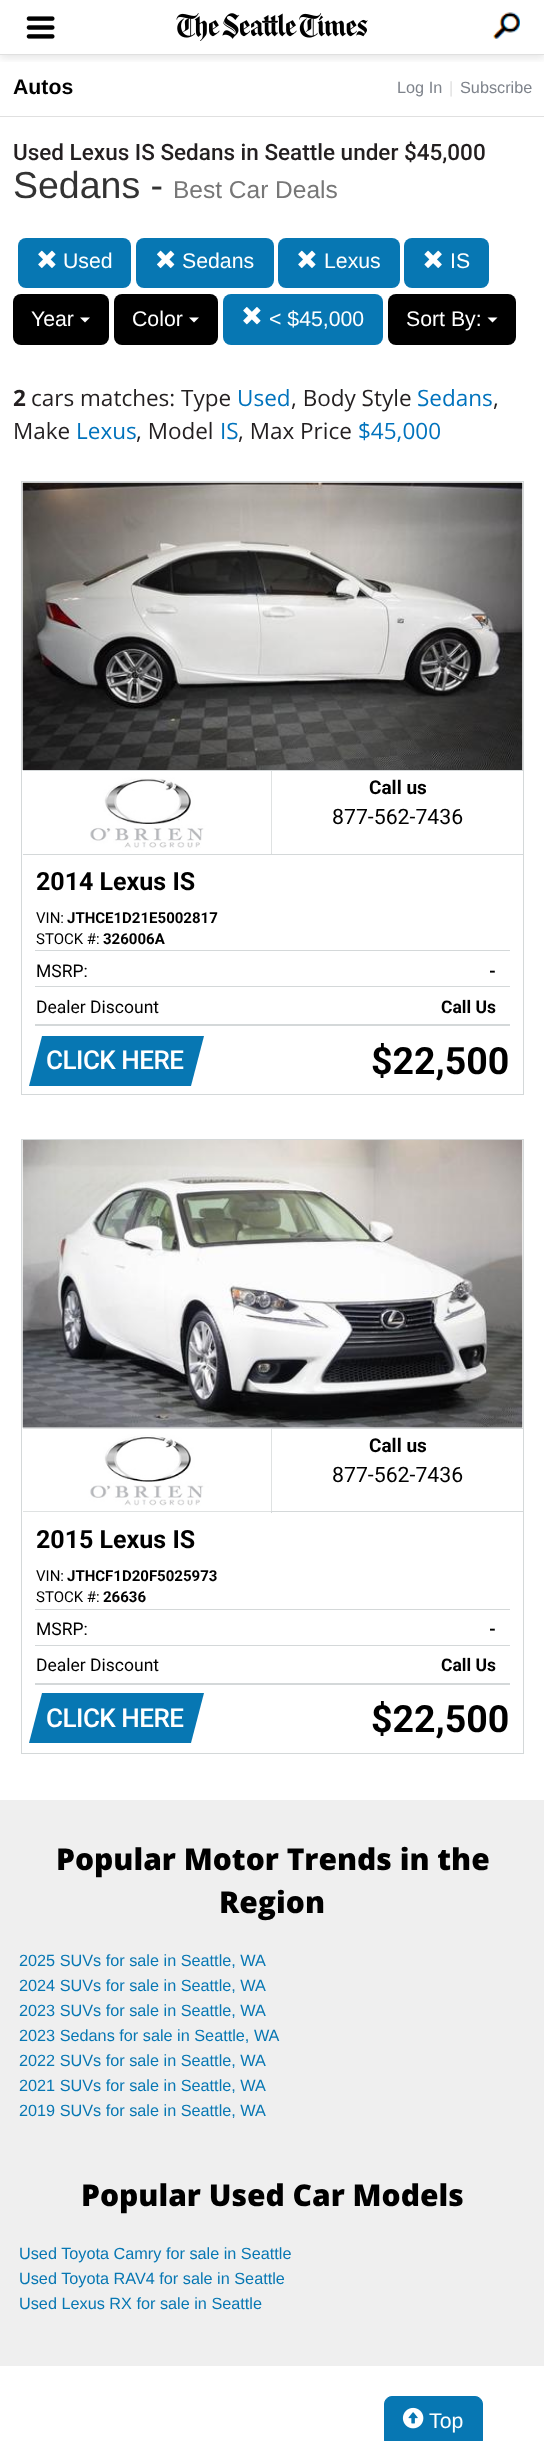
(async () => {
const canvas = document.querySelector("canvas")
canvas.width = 544
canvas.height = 2441
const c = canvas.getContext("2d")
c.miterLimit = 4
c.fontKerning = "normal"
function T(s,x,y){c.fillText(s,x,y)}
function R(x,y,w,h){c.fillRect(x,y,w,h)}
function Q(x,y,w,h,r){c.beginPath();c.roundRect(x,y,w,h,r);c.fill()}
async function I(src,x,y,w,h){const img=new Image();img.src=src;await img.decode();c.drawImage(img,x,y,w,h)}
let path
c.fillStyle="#fff"
R(0,0,544,2441)
c.save()
c.beginPath()
c.rect(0,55,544,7)
c.clip()
c.fillStyle="#0000001a"
c.filter="blur(4.5px)"
c.beginPath()
c.rect(0,3,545,55)
c.fill()
c.filter="none"
c.restore()
c.fillStyle="#e0e0e0"
R(0,54,544,1)
await I("1.png",26,16,29,23)
await I("2.png",176,13,192,28)
await I("3.png",493,12,27,27)
R(0,116,544,1)
c.font="bold 21.25px Liberation Sans"
c.fillStyle="#000"
T("Autos",13,94)
c.font="16.25px Liberation Sans"
c.fillStyle="#7e838b"
T("Log In",397,93)
c.fillStyle="#e0e0e0"
T("|",449,93)
c.fillStyle="#7e838b"
T("Subscribe",460,93)
c.font="500 22.5px Roboto"
c.fillStyle="#231f20"
T("Used Lexus IS Sedans in Seattle under $45,000",13,160)
c.font="37.5px Liberation Sans"
c.fillStyle="#333"
T("Sedans -",13,198)
c.font="24.5px Liberation Sans"
c.fillStyle="#777"
T("Best Car Deals",173,198)
c.fillStyle="#0777b3"
Q(18,238,113,50,8)
await I("4.png",38,250,18,18)
c.font="21.25px Liberation Sans"
c.fillStyle="#fff"
T("Used",63,268)
c.fillStyle="#0777b3"
Q(136,238,138,50,8)
await I("5.png",157,250,18,18)
c.fillStyle="#fff"
T("Sedans",182,268)
c.fillStyle="#0777b3"
Q(278,238,122,50,8)
await I("4.png",298,250,18,18)
c.fillStyle="#fff"
T("Lexus",324,268)
c.fillStyle="#0777b3"
Q(404,238,85,50,8)
await I("6.png",424,250,18,18)
c.fillStyle="#fff"
T("IS",450,268)
c.fillStyle="#000"
Q(13,294,96,51,8)
c.fillStyle="#fff"
T("Year",31,326)
path = new Path2D("M80 317.5h10l-5 5z")
c.fill(path)
c.fillStyle="#000"
Q(114,294,104,51,8)
c.fillStyle="#fff"
T("Color",132,326)
path = new Path2D("M189 317.5h10l-5 5z")
c.fill(path)
c.fillStyle="#0777b3"
Q(223,294,160,51,8)
await I("7.png",243,307,18,18)
c.fillStyle="#fff"
T("< $45,000",269,326)
c.fillStyle="#000"
Q(388,294,128,51,8)
c.fillStyle="#fff"
T("Sort By:",406,326)
path = new Path2D("M487.5 317.5h10l-5 5z")
c.fill(path)
c.font="bold 22.5px Open Sans"
c.fillStyle="#231f20"
T("2",13,406)
c.font="22.5px Open Sans"
T("cars matches: Type",31,406)
c.fillStyle="#0073bd"
T("Used",237,406)
c.fillStyle="#231f20"
T(", Body Style",291,406)
c.fillStyle="#0073bd"
T("Sedans",417,406)
c.fillStyle="#231f20"
T(",",493,406)
T("Make",13,439)
c.fillStyle="#0073bd"
T("Lexus",76,439)
c.fillStyle="#231f20"
T(", Model",136,439)
c.fillStyle="#0073bd"
T("IS",220,439)
c.fillStyle="#231f20"
T(", Max Price",238,439)
c.fillStyle="#0073bd"
T("$45,000",358,439)
c.strokeStyle="#d4d8d9"
c.strokeRect(21.5,481.5,502,613)
await I("8.png",22,482,501,288)
c.fillStyle="#d4d8d9"
R(23,770,500,1)
R(271,770,1,85)
R(23,854,500,1)
await I("9.png",90,771,182,83)
c.font="bold 19px Roboto"
c.fillStyle="#000"
T("Call us",369,794)
c.font="21.25px Roboto"
T("877-562-7436",332,824)
c.font="bold 25px Roboto"
T("2014 Lexus IS",36,890)
c.font="15px Roboto"
T("VIN:",36,923)
c.font="bold 15px Roboto"
T("JTHCE1D21E5002817",67,923)
c.font="15px Roboto"
T("STOCK #:",36,944)
c.font="bold 15px Roboto"
T("326006A",103,944)
c.fillStyle="#d4d8d9"
R(35,950,475,1)
R(35,986,475,1)
c.font="17.5px Roboto"
c.fillStyle="#000"
T("MSRP:",36,977)
c.font="bold 17.5px Roboto"
T("-",489,977)
c.fillStyle="#d4d8d9"
R(35,1024,475,2)
c.font="17.5px Roboto"
c.fillStyle="#000"
T("Dealer Discount",36,1013)
c.font="bold 17.5px Roboto"
T("Call Us",441,1013)
c.fillStyle="#0777b3"
path = new Path2D("M42 1036h162l-13 50h-162z")
c.fill(path)
c.letterSpacing="-0.5px"
c.font="500 26px Roboto"
c.fillStyle="#fff"
T("CLICK HERE",46,1069)
c.letterSpacing="0px"
c.font="bold 37.5px Roboto"
c.fillStyle="#000"
T("$22,500",371,1074)
c.strokeRect(21.5,1139.5,502,614)
await I("10.png",22,1140,501,288)
c.fillStyle="#d4d8d9"
R(23,1428,500,1)
R(271,1428,1,85)
R(23,1511,500,1)
await I("11.png",23,1428,249,84)
c.font="bold 19px Roboto"
c.fillStyle="#000"
T("Call us",369,1452)
c.font="21.25px Roboto"
T("877-562-7436",332,1482)
c.font="bold 25px Roboto"
T("2015 Lexus IS",36,1548)
c.font="15px Roboto"
T("VIN:",36,1581)
c.font="bold 15px Roboto"
T("JTHCF1D20F5025973",67,1581)
c.font="15px Roboto"
T("STOCK #:",36,1602)
c.font="bold 15px Roboto"
T("26636",103,1602)
c.fillStyle="#d4d8d9"
R(35,1609,475,1)
R(35,1645,475,1)
c.font="17.5px Roboto"
c.fillStyle="#000"
T("MSRP:",36,1635)
c.font="bold 17.5px Roboto"
T("-",489,1635)
c.fillStyle="#d4d8d9"
R(35,1683,475,2)
c.font="17.5px Roboto"
c.fillStyle="#000"
T("Dealer Discount",36,1671)
c.font="bold 17.5px Roboto"
T("Call Us",441,1671)
c.fillStyle="#0777b3"
path = new Path2D("M42 1693h162l-13 50h-162z")
c.fill(path)
c.letterSpacing="-0.5px"
c.font="500 26px Roboto"
c.fillStyle="#fff"
T("CLICK HERE",46,1727)
c.letterSpacing="0px"
c.font="bold 37.5px Roboto"
c.fillStyle="#000"
T("$22,500",371,1732)
c.fillStyle="#0777b3"
c.beginPath()
c.roundRect(384.5,2396.5,98,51,7.5)
c.fill()
c.strokeStyle="#0777b3"
c.stroke()
await I("12.png",402,2407,22,22)
c.font="21.25px Liberation Sans"
c.fillStyle="#fff"
T("Top",429,2428)
c.fillStyle="#efefef"
R(0,1800,544,566)
c.font="800 30px Open Sans"
c.fillStyle="#000"
T("Popular Motor Trends in the",56,1870)
T("Region",219,1913)
c.font="16.25px Liberation Sans"
c.fillStyle="#0777b3"
T("2025 SUVs for sale in Seattle, WA",19,1966)
T("2024 SUVs for sale in Seattle, WA",19,1991)
T("2023 SUVs for sale in Seattle, WA",19,2016)
T("2023 Sedans for sale in Seattle, WA",19,2041)
T("2022 SUVs for sale in Seattle, WA",19,2066)
T("2021 SUVs for sale in Seattle, WA",19,2091)
T("2019 SUVs for sale in Seattle, WA",19,2116)
c.font="800 30px Open Sans"
c.fillStyle="#000"
T("Popular Used Car Models",81,2206)
c.font="16.25px Liberation Sans"
c.fillStyle="#0777b3"
T("Used Toyota Camry for sale in Seattle",19,2259)
T("Used Toyota RAV4 for sale in Seattle",19,2284)
T("Used Lexus RX for sale in Seattle",19,2309)
})()
